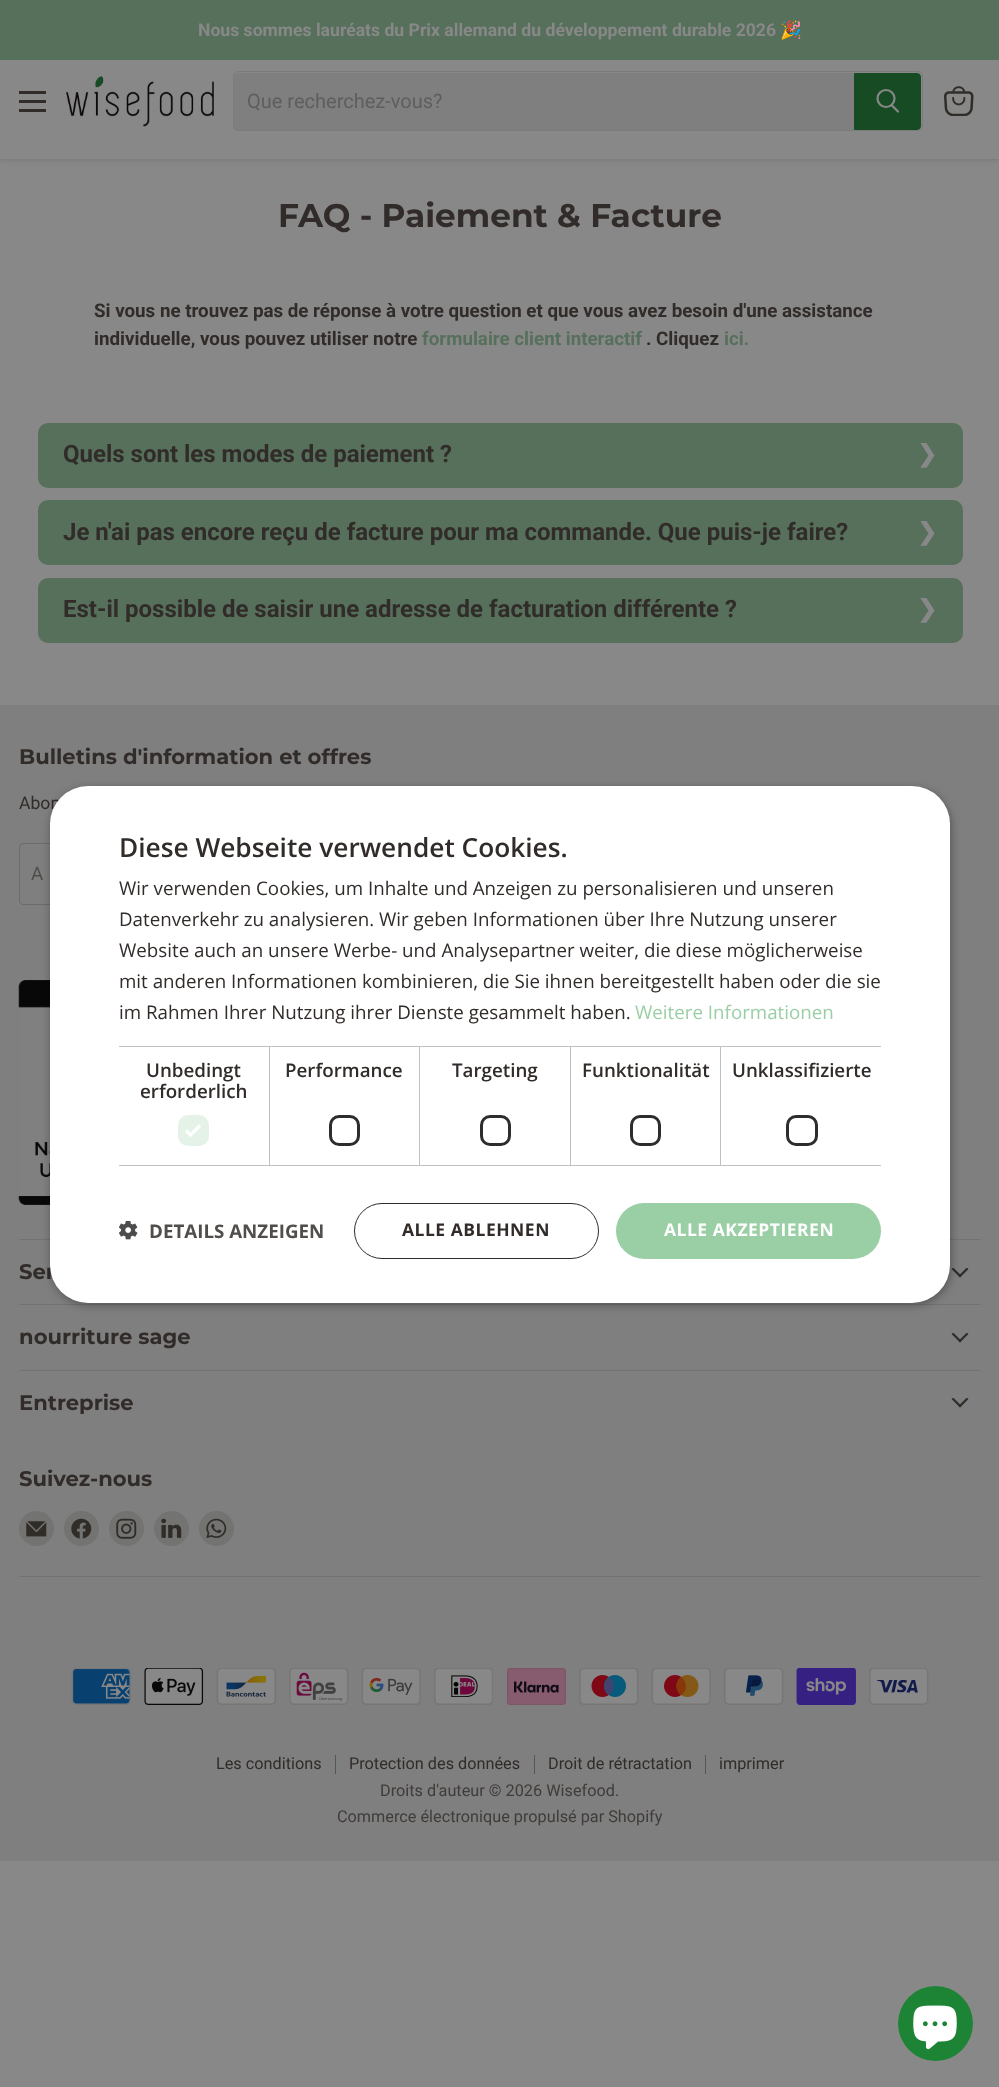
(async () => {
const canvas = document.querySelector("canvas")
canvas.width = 999
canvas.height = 2087
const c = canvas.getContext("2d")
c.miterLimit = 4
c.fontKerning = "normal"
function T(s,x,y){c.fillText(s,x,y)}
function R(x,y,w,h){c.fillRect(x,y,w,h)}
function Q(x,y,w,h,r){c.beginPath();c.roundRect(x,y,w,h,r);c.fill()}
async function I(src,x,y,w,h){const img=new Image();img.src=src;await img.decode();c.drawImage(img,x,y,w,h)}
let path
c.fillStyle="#888"
R(0,0,999,2087)
c.fillStyle="#49494940"
c.filter="blur(2.5px)"
c.beginPath()
c.rect(0,61,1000,99)
c.fill()
c.filter="none"
c.fillStyle="#56705b"
R(0,0,999,60)
c.font="bold 17.6px Roboto"
c.fillStyle="#888"
T("Nous sommes lauréats du Prix allemand du développement durable 2026",198,36)
c.font="bold 17.6px Noto Color Emoji"
T("🎉",780,36)
R(0,60,999,99)
c.fillStyle="#312c29"
R(19,91,27,3)
R(19,100,27,3)
R(19,109,27,3)
await I("1.png",66,76,148,51)
c.beginPath()
c.roundRect(233.5,71.5,689,59,4.5)
c.strokeStyle="#49494933"
c.stroke()
c.fillStyle="#7f7f7f"
c.beginPath()
c.roundRect(234,73,620,57,[4,0,0,4])
c.fill()
c.font="20px Roboto"
c.fillStyle="#605e5d"
T("Que recherchez-vous?",247,108)
c.fillStyle="#174b23"
c.beginPath()
c.roundRect(854.5,73.5,66,56,[0,3.5,3.5,0])
c.fill()
c.strokeStyle="#174b23"
c.stroke()
path = new Path2D("M898 111.5l-6-6")
c.strokeStyle="#888"
c.lineWidth=2.2
c.lineCap="round"
c.stroke(path)
c.beginPath()
c.arc(886,98.5,8.5,0,7)
c.stroke()
await I("2.png",944,86,30,30)
c.font="bold 32.75px Montserrat"
c.fillStyle="#312c29"
T("FAQ - Paiement & Facture",278,227)
c.font="bold 18.75px Roboto"
T("Si vous ne trouvez pas de réponse à votre question et que vous avez besoin d'une assistance",94,317)
T("individuelle, vous pouvez utiliser notre",94,345)
c.fillStyle="#56705b"
T("formulaire client interactif",422,345)
c.fillStyle="#312c29"
T(". Cliquez",646,345)
c.fillStyle="#56705b"
T("ici.",724,345)
Q(38,423,925,65,10)
c.font="bold 24px Roboto"
c.fillStyle="#312c29"
T("Quels sont les modes de paiement ?",63,462)
c.font="bold 24px DejaVu Sans"
c.fillStyle="#888"
T("❯",917,462)
c.fillStyle="#56705b"
Q(38,500,925,65,10)
c.font="bold 24px Roboto"
c.fillStyle="#312c29"
T("Je n'ai pas encore reçu de facture pour ma commande. Que puis-je faire?",63,540)
c.font="bold 24px DejaVu Sans"
c.fillStyle="#888"
T("❯",917,540)
c.fillStyle="#56705b"
Q(38,578,925,65,10)
c.font="bold 24px Roboto"
c.fillStyle="#312c29"
T("Est-il possible de saisir une adresse de facturation différente ?",63,617)
c.font="bold 24px DejaVu Sans"
c.fillStyle="#888"
T("❯",917,617)
c.fillStyle="#7f7f7f"
R(0,705,999,1156)
c.fillStyle="#737372"
R(19,1239,962,1)
c.font="bold 21.1px Montserrat"
c.fillStyle="#312c29"
T("Bulletins d'information et offres",19,764)
c.font="17.6px Roboto"
T("Abon",19,809)
c.beginPath()
c.roundRect(19.5,843.5,305,61,3.5)
c.strokeStyle="#6c6b6b"
c.lineWidth=1
c.stroke()
c.font="18.75px Roboto"
c.fillStyle="#504d4b"
T("A",31,880)
await I("3.png",18,980,32,225)
c.fillStyle="#737372"
R(19,1304,962,1)
c.font="bold 21.1px Montserrat"
c.fillStyle="#312c29"
T("Ser",19,1279)
await I("4.png",951,1268,18,10)
c.fillStyle="#737372"
R(19,1370,962,1)
c.fillStyle="#312c29"
T("nourriture sage",19,1344)
await I("4.png",951,1333,18,10)
c.fillStyle="#737372"
R(19,1576,962,1)
c.fillStyle="#312c29"
T("Entreprise",19,1410)
await I("4.png",951,1398,18,10)
T("Suivez-nous",19,1486)
c.fillStyle="#737372"
c.beginPath()
c.arc(36.5,1528.5,17.5,0,7)
c.fill()
await I("5.png",26,1521,21,16)
c.beginPath()
c.arc(81.5,1528.5,17.5,0,7)
c.fill()
await I("6.png",71,1518,21,21)
c.beginPath()
c.arc(126.5,1528.5,17.5,0,7)
c.fill()
await I("7.png",116,1518,21,21)
c.beginPath()
c.arc(171.5,1528.5,17.5,0,7)
c.fill()
await I("8.png",161,1518,21,20)
c.beginPath()
c.arc(216.5,1528.5,17.5,0,7)
c.fill()
await I("9.png",206,1518,21,20)
await I("10.png",71,1668,60,37)
await I("11.png",144,1668,60,37)
await I("12.png",216,1668,60,37)
await I("13.png",289,1668,60,37)
await I("14.png",361,1668,60,37)
await I("15.png",434,1668,59,37)
await I("16.png",507,1668,59,37)
await I("17.png",579,1668,60,37)
await I("18.png",651,1668,60,37)
await I("19.png",724,1668,60,37)
await I("20.png",796,1668,60,37)
await I("21.png",869,1668,60,37)
c.fillStyle="#585654"
R(335,1755,1,19)
c.font="16.25px Roboto"
c.fillStyle="#312c29"
T("Les conditions",216,1769)
c.fillStyle="#585654"
R(534,1755,1,19)
c.fillStyle="#312c29"
T("Protection des données",349,1769)
c.fillStyle="#585654"
R(705,1755,1,19)
c.fillStyle="#312c29"
T("Droit de rétractation",548,1769)
T("imprimer",719,1769)
c.fillStyle="#403c3a"
T("Droits d'auteur © 2026 Wisefood.",380,1796)
T("Commerce électronique propulsé par Shopify",337,1822)
c.fillStyle="#00000059"
c.filter="blur(5px)"
c.beginPath()
c.roundRect(51,789,900,516,38)
c.fill()
c.filter="none"
c.fillStyle="#fff"
Q(50,786,900,517,38)
c.font="600 26.25px Open Sans"
c.fillStyle="#312c29"
T("Diese Webseite verwendet Cookies.",119,857)
c.font="18.75px Open Sans"
T("Wir verwenden Cookies, um Inhalte und Anzeigen zu personalisieren und unseren",119,895)
T("Datenverkehr zu analysieren. Wir geben Informationen über Ihre Nutzung unserer",119,926)
T("Website auch an unsere Werbe- und Analysepartner weiter, die diese möglicherweise",119,957)
T("mit anderen Informationen kombinieren, die Sie ihnen bereitgestellt haben oder die sie",119,988)
T("im Rahmen Ihrer Nutzung ihrer Dienste gesammelt haben.",119,1019)
c.fillStyle="#9acea4"
T("Weitere Informationen",635,1019)
c.fillStyle="#c0c0c0"
R(119,1046,762,1)
R(269,1046,1,120)
R(119,1165,151,1)
c.font="600 18.75px Open Sans"
c.fillStyle="#312c29"
T("Unbedingt",146,1077)
T("erforderlich",140,1098)
c.fillStyle="#e5f2e7"
Q(178,1115,31,31,10)
path = new Path2D("M186 1130.5l4.5 4.5l9.5-9.5")
c.strokeStyle="#fff"
c.lineWidth=3.3
c.lineCap="butt"
c.stroke(path)
c.fillStyle="#c0c0c0"
R(419,1046,1,120)
R(270,1165,150,1)
c.fillStyle="#312c29"
T("Performance",285,1077)
c.beginPath()
c.roundRect(330.5,1116.5,28,28,8.5)
c.strokeStyle="#2d2d2d"
c.lineWidth=3
c.stroke()
c.fillStyle="#c0c0c0"
R(570,1046,1,120)
R(420,1165,151,1)
c.fillStyle="#312c29"
T("Targeting",452,1077)
c.beginPath()
c.roundRect(481.5,1116.5,28,28,8.5)
c.stroke()
c.fillStyle="#c0c0c0"
R(720,1046,1,120)
R(571,1165,310,1)
c.fillStyle="#312c29"
T("Funktionalität",582,1077)
c.beginPath()
c.roundRect(631.5,1116.5,28,28,8.5)
c.stroke()
T("Unklassifizierte",732,1077)
c.beginPath()
c.roundRect(787.5,1116.5,29,28,8.5)
c.stroke()
await I("22.png",119,1221,19,19)
c.font="bold 18.75px Open Sans"
c.fillStyle="#504d4b"
T("DETAILS ANZEIGEN",149,1238)
c.beginPath()
c.roundRect(354.5,1203.5,244,55,27.5)
c.lineWidth=1
c.stroke()
c.letterSpacing="0.5px"
c.font="bold 17.5px Open Sans"
c.fillStyle="#312c29"
T("ALLE ABLEHNEN",402,1236)
c.fillStyle="#9acea4"
Q(616,1203,265,56,28)
c.fillStyle="#fff"
T("ALLE AKZEPTIEREN",664,1236)
c.fillStyle="#1d8435"
c.beginPath()
c.arc(935.5,2023.5,37.5,0,7)
c.fill()
await I("23.png",913,2005,44,45)
})()
